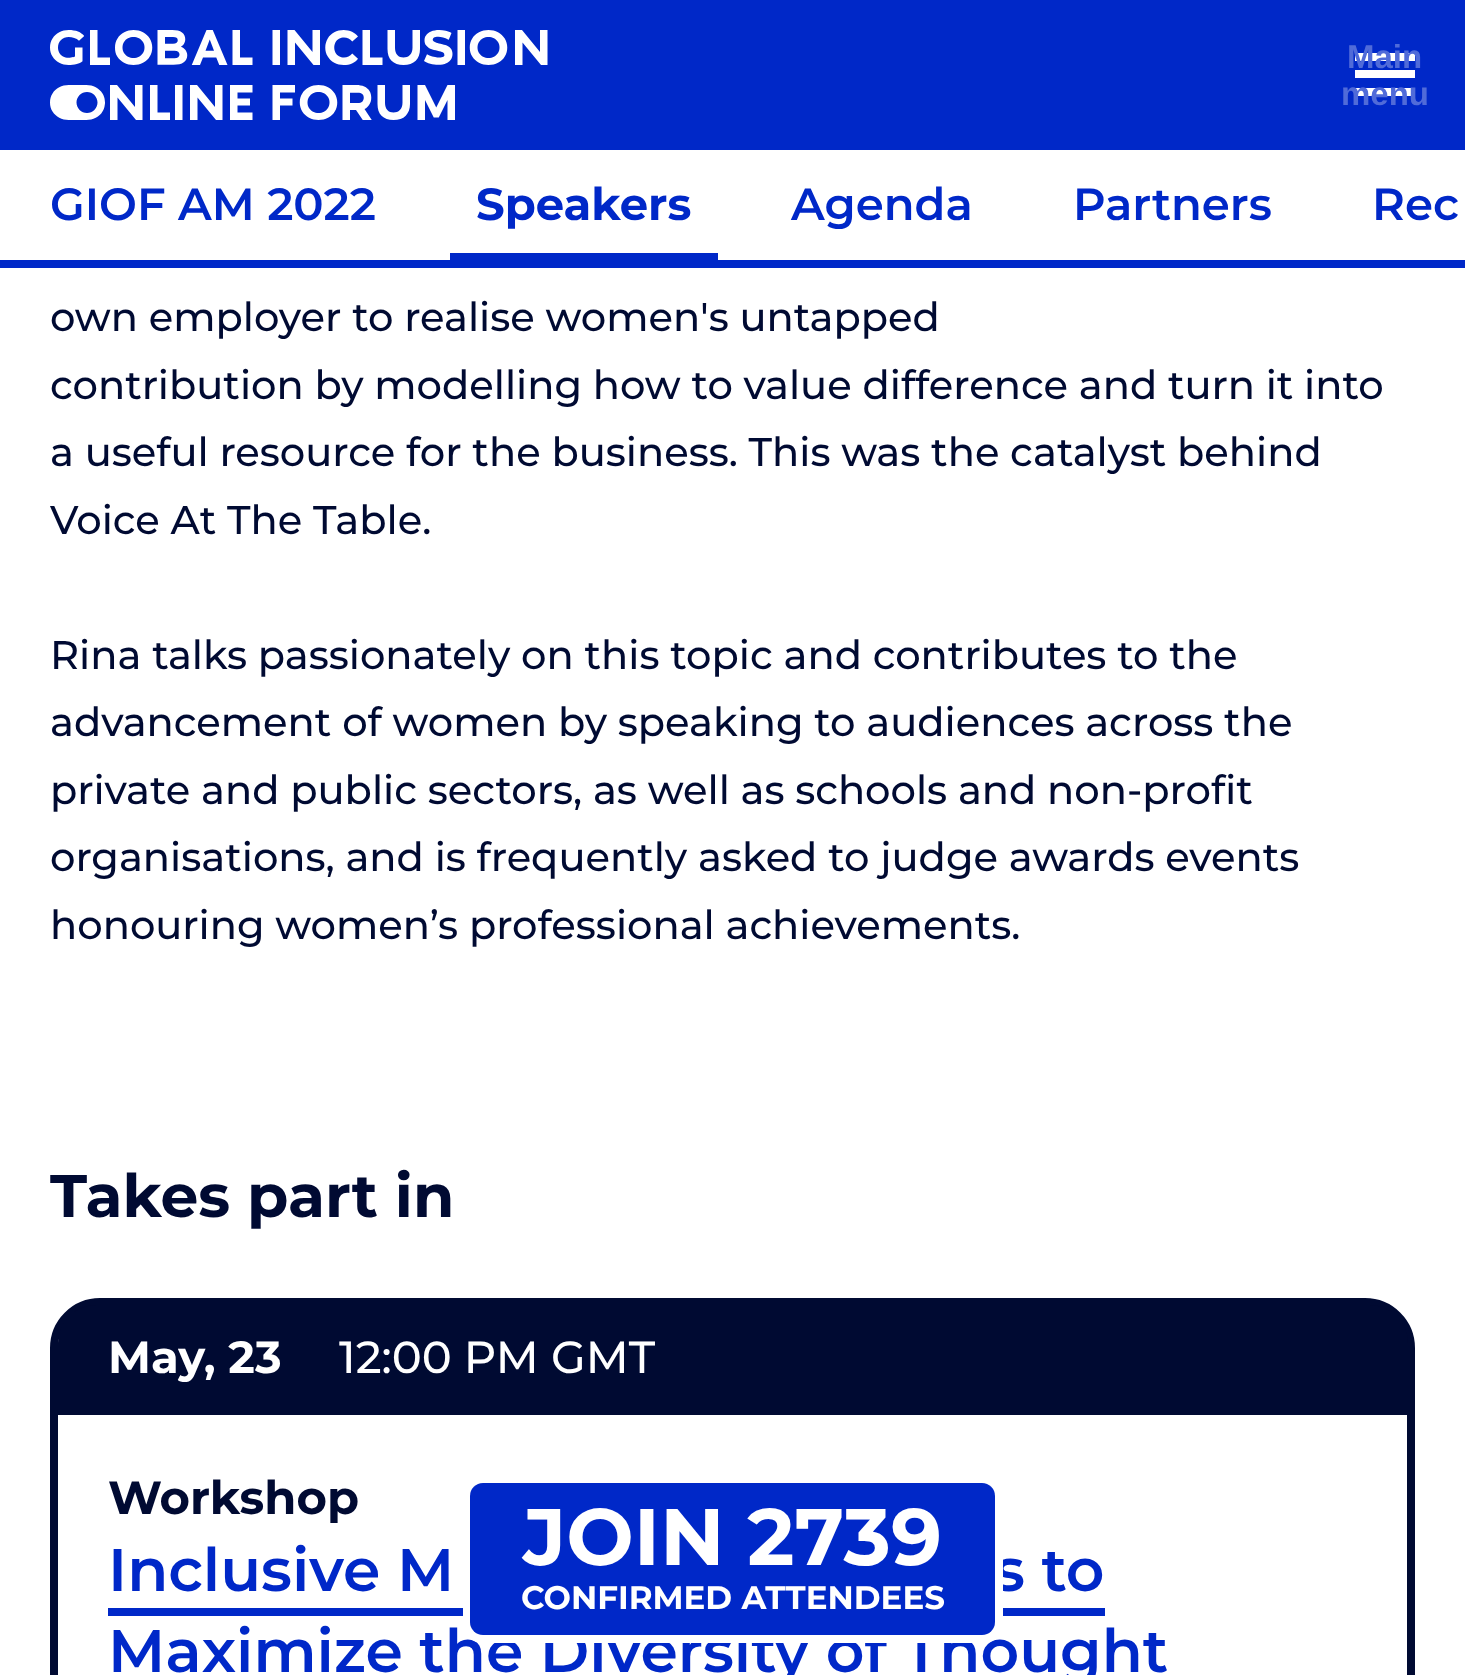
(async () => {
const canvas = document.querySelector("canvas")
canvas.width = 1465
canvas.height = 1675
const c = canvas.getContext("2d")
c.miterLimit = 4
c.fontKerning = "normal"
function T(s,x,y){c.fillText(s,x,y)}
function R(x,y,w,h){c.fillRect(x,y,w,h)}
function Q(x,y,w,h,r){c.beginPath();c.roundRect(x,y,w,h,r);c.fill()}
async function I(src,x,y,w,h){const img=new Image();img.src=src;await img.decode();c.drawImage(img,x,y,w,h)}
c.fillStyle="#fff"
R(0,0,1465,1675)
c.fillStyle="#0028c8"
R(0,0,1465,150)
await I("1.png",50,30,498,90)
c.fillStyle="#fff"
R(1355,53,60,8)
c.font="bold 33px Liberation Sans"
c.fillStyle="#506bd9"
T("Main",1347,68)
c.fillStyle="#fff"
R(1355,70,60,8)
R(1355,88,60,8)
c.fillStyle="#506bd9"
T("menu",1341,105)
c.fillStyle="#0028c8"
R(0,260,1465,8)
c.font="600 45px Montserrat"
T("GIOF AM 2022",50,220)
c.font="bold 45px Montserrat"
T("Speakers",476,220)
R(450,253,268,7)
c.font="600 45px Montserrat"
T("Agenda",791,220)
T("Partners",1073,220)
T("Rec",1372,220)
c.font="500 40px Montserrat"
c.fillStyle="#000a32"
T("own employer to realise women's untapped",50,331)
T("contribution by modelling how to value difference and turn it into",50,399)
T("a useful resource for the business. This was the catalyst behind",50,466)
T("Voice At The Table.",50,534)
T("Rina talks passionately on this topic and contributes to the",50,669)
T("advancement of women by speaking to audiences across the",50,736)
T("private and public sectors, as well as schools and non-profit",50,804)
T("organisations, and is frequently asked to judge awards events",50,871)
T("honouring women’s professional achievements.",50,939)
c.font="bold 60px Montserrat"
T("Takes part in",50,1217)
c.beginPath()
c.roundRect(54,1302,1357,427,46)
c.strokeStyle="#000a32"
c.lineWidth=8
c.stroke()
c.beginPath()
c.roundRect(58,1305,1350,110,[38,38,0,0])
c.fill()
c.font="bold 45px Montserrat"
c.fillStyle="#fff"
T("May, 23",108,1373)
c.font="500 45px Montserrat"
T("12:00 PM GMT",339,1373)
c.font="bold 46.5px Montserrat"
c.fillStyle="#000a32"
T("Workshop",108,1514)
c.font="600 60px Montserrat"
c.fillStyle="#0028c8"
T("Inclusive M",108,1591)
T("s to",994,1591)
T("Maximize the Diversity of Thought",108,1672)
R(108,1608,997,8)
c.beginPath()
c.roundRect(467,1479,532,160,16)
c.strokeStyle="#fff"
c.stroke()
Q(470,1483,525,152,13)
c.font="bold 80px Montserrat"
c.fillStyle="#fff"
T("JOIN 2739",523,1565)
c.font="bold 32.5px Montserrat"
T("CONFIRMED ATTENDEES",521,1609)
})()
